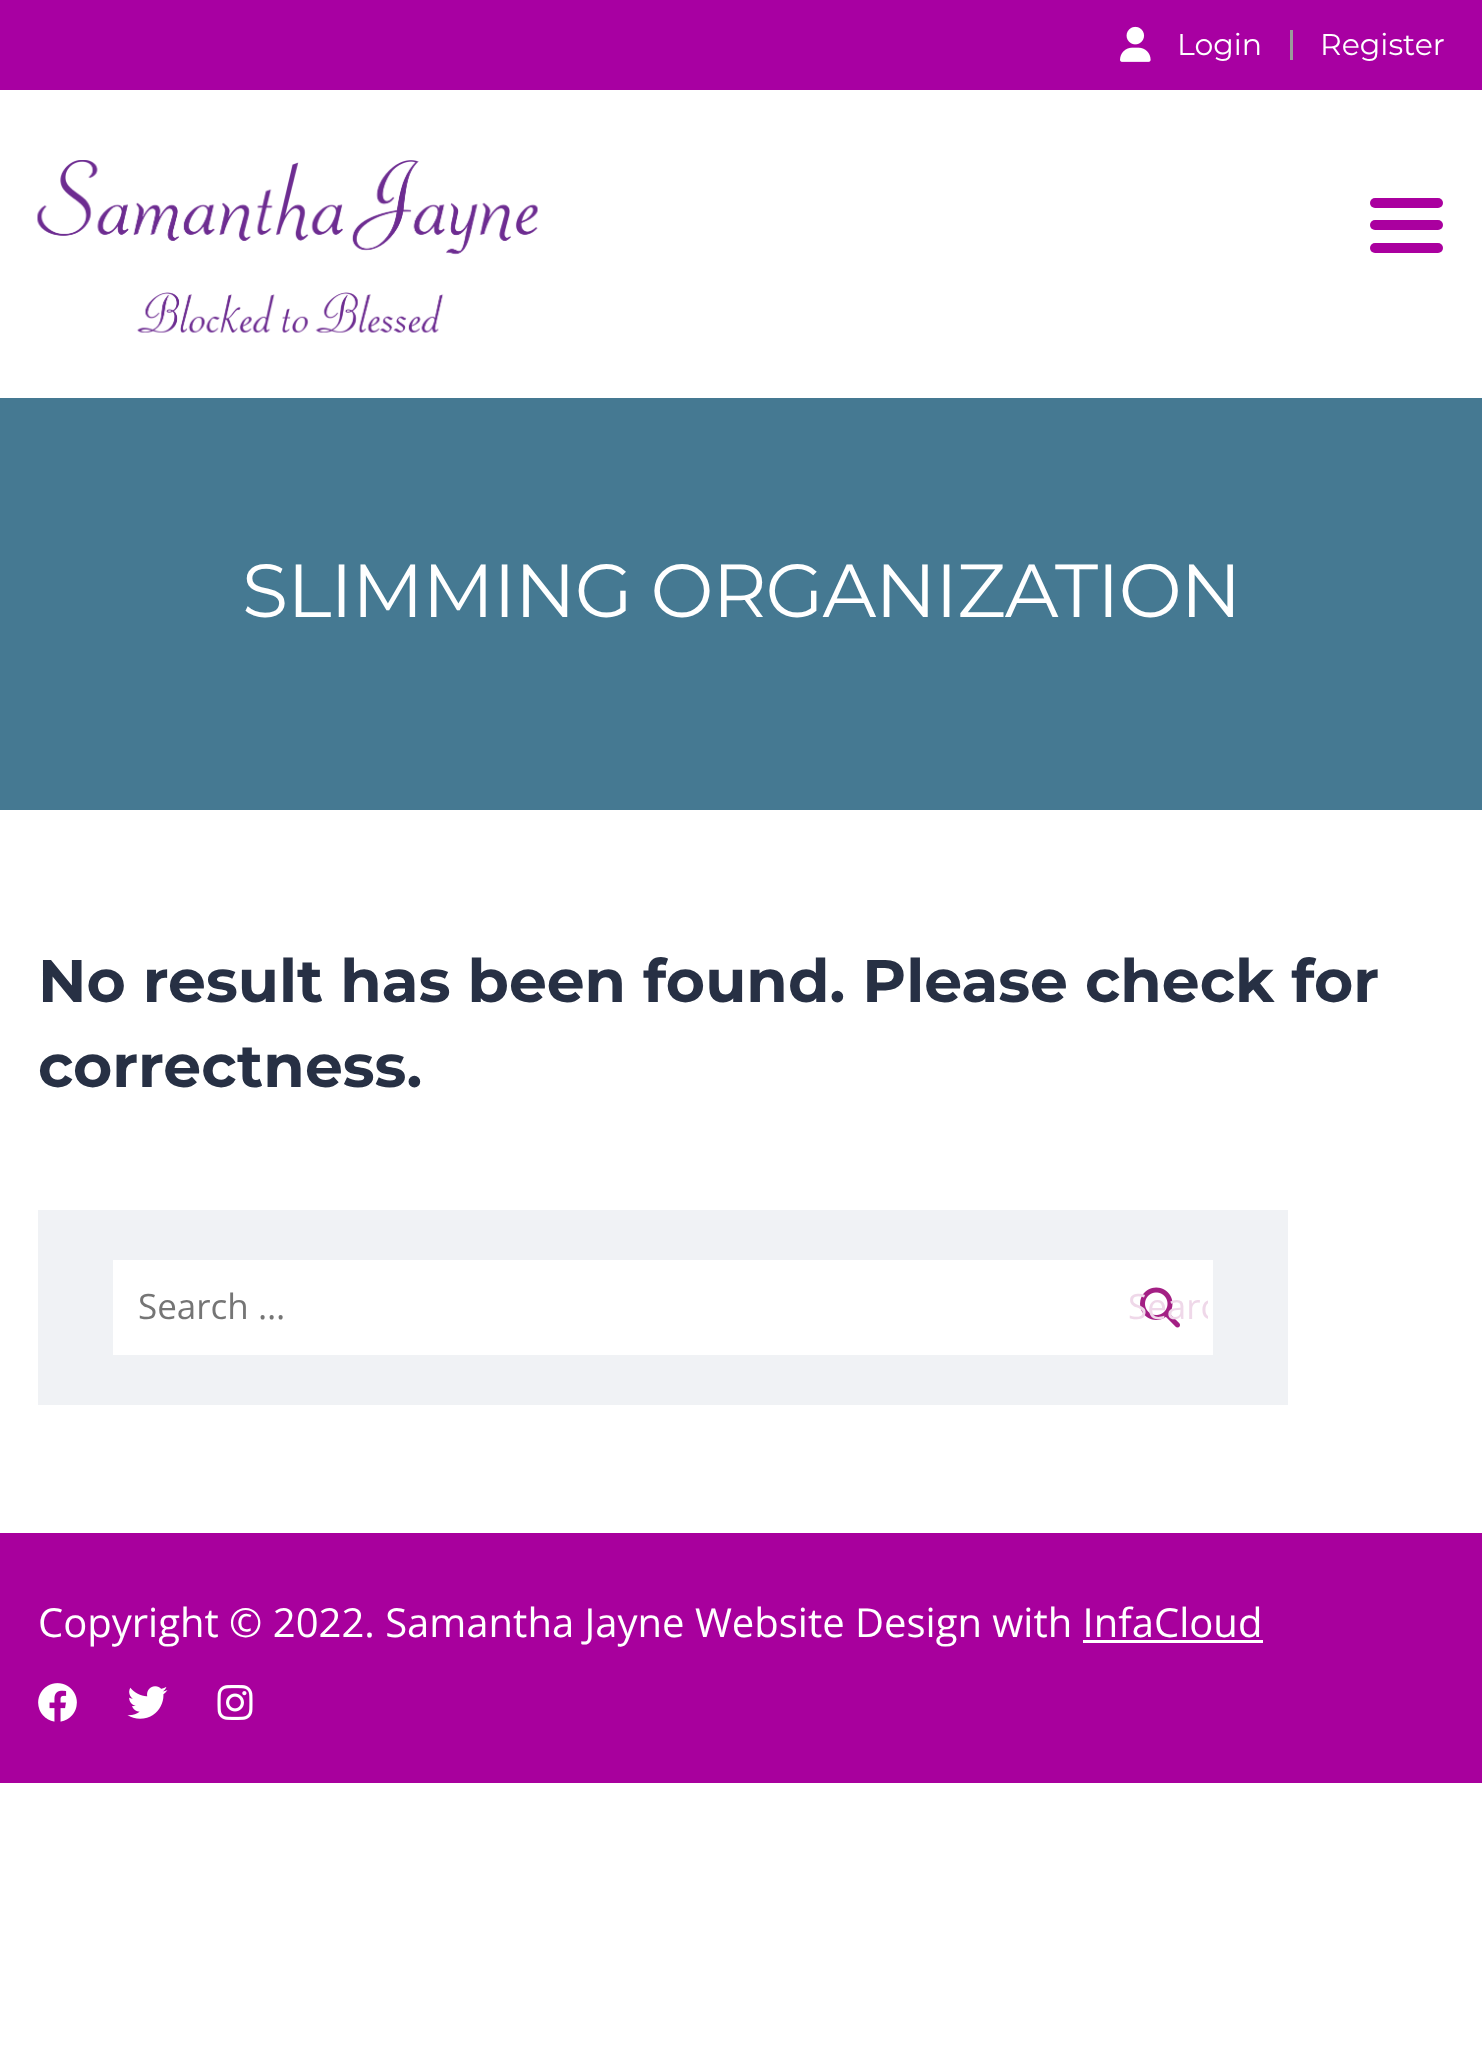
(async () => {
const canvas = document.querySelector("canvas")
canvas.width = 1482
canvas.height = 2071
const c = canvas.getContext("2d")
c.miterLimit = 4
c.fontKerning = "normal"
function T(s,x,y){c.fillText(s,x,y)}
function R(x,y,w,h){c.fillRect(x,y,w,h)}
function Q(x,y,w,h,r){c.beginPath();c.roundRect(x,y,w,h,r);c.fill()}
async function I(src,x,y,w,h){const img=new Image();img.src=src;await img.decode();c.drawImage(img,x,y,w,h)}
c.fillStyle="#fff"
R(0,0,1482,2071)
c.fillStyle="#a800a2"
R(0,0,1482,90)
await I("1.png",1120,26,31,36)
c.font="30px Montserrat"
c.fillStyle="#fff"
T("Login",1177,55)
c.fillStyle="#9a9a9a"
R(1290,30,3,30)
c.fillStyle="#fff"
T("Register",1320,55)
await I("2.png",37,160,501,173)
c.fillStyle="#aa009f"
Q(1370,198,73,10,5)
Q(1370,220,73,10,5)
Q(1370,243,73,10,5)
c.fillStyle="#457992"
R(0,398,1482,412)
c.letterSpacing="-1px"
c.font="75px Montserrat"
c.fillStyle="#fff"
T("SLIMMING ORGANIZATION",242,617)
c.letterSpacing="0px"
c.font="bold 60px Montserrat"
c.fillStyle="#273044"
T("No result has been found. Please check for",38,1002)
T("correctness.",38,1087)
c.fillStyle="#f0f2f5"
R(38,1210,1250,195)
c.fillStyle="#fff"
R(113,1260,1100,95)
c.font="35px Open Sans"
c.fillStyle="#757575"
T("Search …",138,1319)
await I("3.png",1140,1287,40,41)
c.save()
c.beginPath()
c.rect(1113,1265,95,85)
c.clip()
c.fillStyle="#efd8e9"
T("Searc",1128,1319)
c.restore()
c.fillStyle="#a8009d"
R(0,1533,1482,250)
c.font="40px Open Sans"
c.fillStyle="#fff"
T("Copyright © 2022. Samantha Jayne Website Design with InfaCloud",38,1637)
R(1083,1640,180,3)
await I("4.png",38,1683,39,39)
await I("5.png",127,1686,41,33)
await I("6.png",217,1685,36,35)
})()
